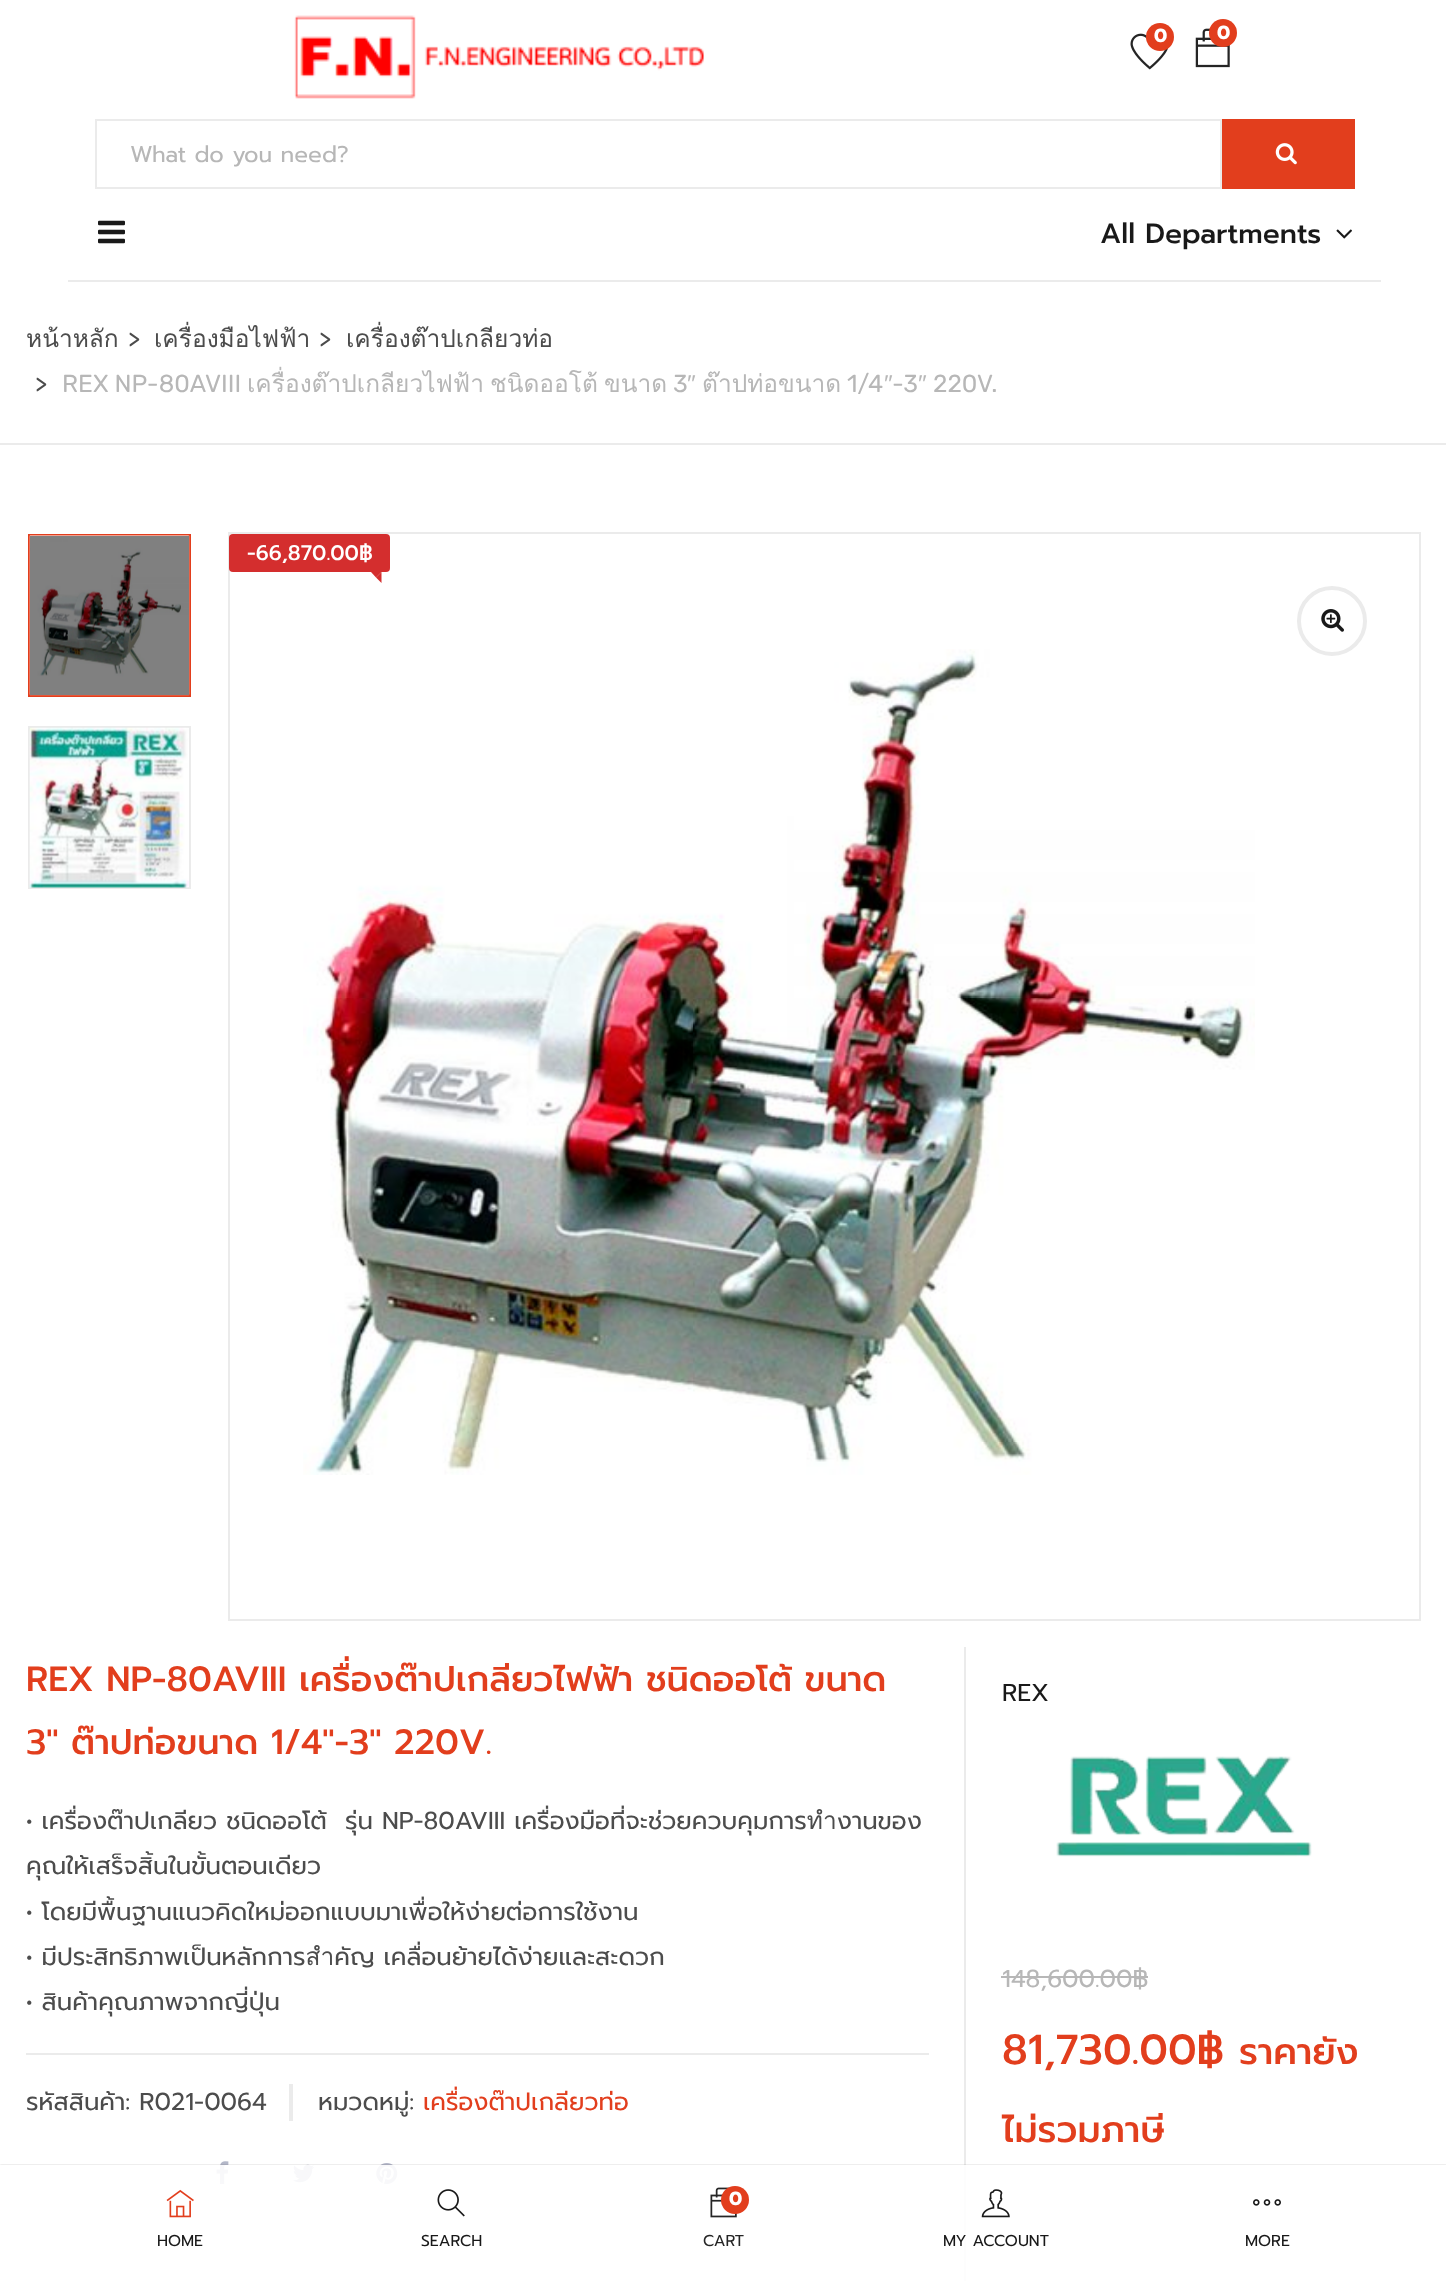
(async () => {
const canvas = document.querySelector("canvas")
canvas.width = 1446
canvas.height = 2281
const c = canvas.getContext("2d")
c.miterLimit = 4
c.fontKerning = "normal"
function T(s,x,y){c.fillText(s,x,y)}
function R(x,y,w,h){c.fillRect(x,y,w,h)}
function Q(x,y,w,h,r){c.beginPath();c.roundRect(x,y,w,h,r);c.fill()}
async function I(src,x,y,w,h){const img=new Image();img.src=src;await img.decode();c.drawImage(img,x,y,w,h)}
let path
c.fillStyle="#fff"
R(0,0,1446,2281)
await I("1.png",294,15,410,84)
await I("2.png",1130,33,39,37)
c.fillStyle="#e23e1d"
c.beginPath()
c.arc(1160,37,14,0,7)
c.fill()
c.font="bold 19px Prompt"
c.fillStyle="#fff"
T("0",1154,42)
await I("3.png",1195,28,35,40)
c.fillStyle="#e23e1d"
c.beginPath()
c.arc(1223,33,14,0,7)
c.fill()
c.fillStyle="#fff"
T("0",1217,39)
c.strokeStyle="#ebebeb"
c.lineWidth=2
c.strokeRect(96,120,1125,68)
c.font="22.75px Prompt"
c.fillStyle="#b7b7b7"
T("What do you need?",130,162)
c.fillStyle="#e23e1d"
R(1222,119,133,70)
await I("4.png",1275,143,22,22)
c.fillStyle="#ebebeb"
R(68,280,1313,2)
await I("5.png",98,220,27,24)
c.font="500 28px Prompt"
c.fillStyle="#191919"
T("All Departments",1100,243)
await I("6.png",1336,229,16,10)
c.fillStyle="#ebebeb"
R(0,443,1446,2)
c.font="24.5px Loma"
c.fillStyle="#4c4c4c"
T("หน้าหลัก",26,347)
c.font="24.5px Rubik"
T(">",128,347)
c.font="24.5px Loma"
T("เครื่องมือไฟฟ้า",154,347)
c.font="24.5px Rubik"
T(">",319,347)
c.font="24.5px Loma"
T("เครื่องต๊าปเกลียวท่อ",346,347)
c.font="24.5px Rubik"
c.fillStyle="#b7b7b7"
T("REX NP-80AVIII",62,392)
c.font="24.5px Loma"
T("เครื่องต๊าปเกลียวไฟฟ้า",247,392)
T("ชนิดออโต้",490,392)
c.font="24.5px Rubik"
T("3",673,392)
c.font="24.5px Liberation Sans"
T("″",687,392)
c.font="24.5px Loma"
T("ต๊าปท่อขนาด",702,392)
c.font="24.5px Rubik"
T("1/4",847,392)
T("-3",892,392)
T("220V.",933,392)
c.fillStyle="#4c4c4c"
T(">",35,392)
c.font="24.5px Loma"
c.fillStyle="#b7b7b7"
T("ขนาด",604,392)
c.font="24.5px Liberation Sans"
T("″",884,392)
T("″",918,392)
c.fillStyle="#808080"
c.beginPath()
c.rect(29,535,161,161)
c.fill()
c.strokeStyle="#e23e1d"
c.stroke()
await I("7.png",29,535,161,161)
c.strokeStyle="#ebebeb"
c.strokeRect(29,727,161,161)
await I("8.png",29,727,160,161)
c.strokeRect(229,533,1191,1087)
c.fillStyle="#d42e2e"
Q(229,534,161,38,4)
c.font="500 21px Prompt"
c.fillStyle="#fff"
T("-66,870.00฿",247,560)
c.fillStyle="#d42e2e"
path = new Path2D("M371 572h10.5l-5.5 5.5z")
c.fill(path)
path = new Path2D("M381.5 572v11l-5.5-5.5z")
c.fill(path)
c.beginPath()
c.arc(1332,621,33,0,7)
c.lineWidth=4
c.stroke()
await I("9.png",1321,609,23,23)
await I("10.png",303,649,952,826)
c.font="500 35px Prompt"
c.fillStyle="#e23e1d"
T("REX NP-80AVIII เครื่องต๊าปเกลียวไฟฟ้า ชนิดออโต้ ขนาด",26,1691)
T("3″ ต๊าปท่อขนาด 1/4″-3″ 220V.",26,1754)
c.font="24.5px Prompt"
c.fillStyle="#4c4c4c"
T("• เครื่องต๊าปเกลียว ชนิดออโต้  รุ่น NP-80AVIII เครื่องมือที่จะช่วยควบคุมการทำงานของ",26,1829)
T("คุณให้เสร็จสิ้นในขั้นตอนเดียว",26,1874)
T("• โดยมีพื้นฐานแนวคิดใหม่ออกแบบมาเพื่อให้ง่ายต่อการใช้งาน",26,1920)
T("• มีประสิทธิภาพเป็นหลักการสำคัญ เคลื่อนย้ายได้ง่ายและสะดวก",26,1965)
T("• สินค้าคุณภาพจากญี่ปุ่น",26,2010)
c.fillStyle="#ebebeb"
R(26,2053,903,2)
c.fillStyle="#4c4c4c"
T("รหัสสินค้า: R021-0064",26,2110)
c.fillStyle="#ebebeb"
R(289,2084,4,37)
c.fillStyle="#4c4c4c"
T("หมวดหมู่:",318,2110)
c.fillStyle="#e23e1d"
T("เครื่องต๊าปเกลียวท่อ",423,2110)
await I("11.png",216,2161,13,23)
await I("12.png",293,2164,21,19)
await I("13.png",376,2163,22,21)
c.fillStyle="#ebebeb"
R(964,1647,2,634)
c.fillStyle="#191919"
T("REX",1002,1701)
await I("14.png",1056,1756,256,101)
c.fillStyle="#b7b7b7"
T("148,600.00฿",1002,1987)
R(1001,1976,147,2)
c.font="500 42px Prompt"
c.fillStyle="#e23e1d"
T("81,730.00฿",1002,2064)
c.font="500 36.5px Prompt"
T("ราคายัง",1239,2064)
T("ไม่รวมภาษี",1002,2142)
c.save()
c.beginPath()
c.rect(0,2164,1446,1)
c.clip()
c.fillStyle="#00000033"
c.filter="blur(1px)"
c.beginPath()
c.rect(0,2165,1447,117)
c.fill()
c.filter="none"
c.restore()
c.fillStyle="#ffffffe6"
R(216,2165,750,116)
await I("15.png",166,2189,28,29)
c.font="15.75px Prompt"
c.fillStyle="#191919"
T("HOME",157,2246)
await I("16.png",437,2189,28,28)
T("SEARCH",421,2246)
await I("17.png",710,2187,27,31)
c.fillStyle="#e23e1d"
c.beginPath()
c.arc(735,2200,14,0,7)
c.fill()
c.font="bold 19px Prompt"
c.fillStyle="#fff"
T("0",729,2205)
c.font="15.75px Prompt"
c.fillStyle="#252525"
T("CART",703,2246)
await I("18.png",981,2189,29,29)
c.fillStyle="#191919"
T("MY ACCOUNT",943,2246)
await I("19.png",1253,2199,28,7)
T("MORE",1245,2246)
})()
